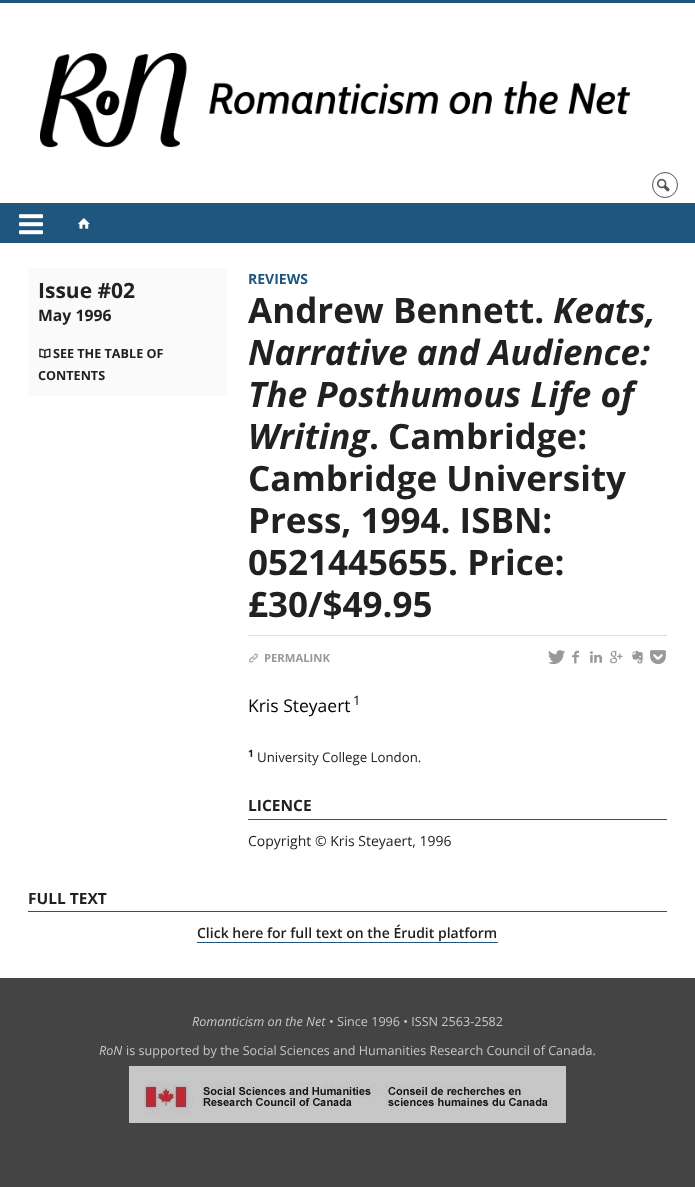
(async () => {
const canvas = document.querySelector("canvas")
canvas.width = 695
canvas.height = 1187
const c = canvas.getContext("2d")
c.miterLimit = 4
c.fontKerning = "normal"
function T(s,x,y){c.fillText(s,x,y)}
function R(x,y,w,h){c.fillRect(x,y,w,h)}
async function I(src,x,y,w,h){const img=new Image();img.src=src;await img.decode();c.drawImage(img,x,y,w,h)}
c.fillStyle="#fff"
R(0,0,695,1187)
c.fillStyle="#1f567d"
R(0,0,695,3)
await I("1.png",40,53,591,95)
c.beginPath()
c.arc(665,185,12.5,0,7)
c.strokeStyle="#555"
c.stroke()
await I("2.png",657,178,13,14)
R(0,203,695,40)
await I("3.png",19,214,24,21)
await I("4.png",78,218,12,11)
c.fillStyle="#fafafa"
R(28,268,199,128)
c.font="bold 21px Open Sans"
c.fillStyle="#212121"
T("Issue #02",38,298)
c.font="bold 15.75px Open Sans"
T("May 1996",38,321)
await I("5.png",39,348,12,11)
c.font="bold 12.6px Open Sans"
T("SEE THE TABLE OF",53,358)
T("CONTENTS",38,380)
c.font="bold 14px Open Sans"
c.fillStyle="#1f567d"
T("REVIEWS",248,284)
c.font="bold 35px Open Sans"
c.fillStyle="#212121"
T("Andrew Bennett.",248,323)
c.font="italic bold 35px Open Sans"
T("Keats,",553,323)
T("Narrative and Audience:",248,365)
T("The Posthumous Life of",248,407)
T("Writing",248,449)
c.font="bold 35px Open Sans"
T(". Cambridge:",369,449)
T("Cambridge University",248,491)
T("Press, 1994. ISBN:",248,533)
T("0521445655. Price:",248,575)
T("£30/$49.95",248,617)
c.fillStyle="#ddd"
R(248,635,419,1)
await I("6.png",249,653,9,10)
c.font="bold 11.25px Open Sans"
c.fillStyle="#999"
T("PERMALINK",264,662)
await I("7.png",548,650,17,15)
await I("8.png",572,650,7,14)
await I("9.png",590,651,12,12)
await I("10.png",610,650,13,14)
await I("11.png",632,650,11,14)
await I("12.png",650,650,16,15)
c.font="17.5px Open Sans"
c.fillStyle="#000"
T("Kris Steyaert",248,712)
c.font="13px Open Sans"
T("1",353,705)
c.font="bold 10px Open Sans"
c.fillStyle="#212121"
T("1",248,757)
c.font="13.25px Open Sans"
T("University College London.",257,762)
c.fillStyle="#1f567d"
R(248,819,419,1)
c.font="bold 15.5px Open Sans"
c.fillStyle="#212121"
T("LICENCE",248,811)
c.font="14px Open Sans"
T("Copyright © Kris Steyaert, 1996",248,846)
c.fillStyle="#1f567d"
R(28,911,639,1)
c.font="bold 15.5px Open Sans"
c.fillStyle="#212121"
T("FULL TEXT",28,904)
c.font="600 14px Open Sans"
T("Click here for full text on the Érudit platform",197,938)
c.fillStyle="#1f567d"
R(197,942,301,1)
c.fillStyle="#444"
R(0,978,695,209)
c.font="italic 12.6px Open Sans"
c.fillStyle="#c7c7c7"
T("Romanticism on the Net",192,1026)
c.font="12.6px Open Sans"
T("• Since 1996 • ISSN 2563-2582",329,1026)
c.font="italic 12.6px Open Sans"
T("RoN",99,1055)
c.font="12.6px Open Sans"
T("is supported by the Social Sciences and Humanities Research Council of Canada.",126,1055)
await I("13.png",129,1066,437,57)
})()
